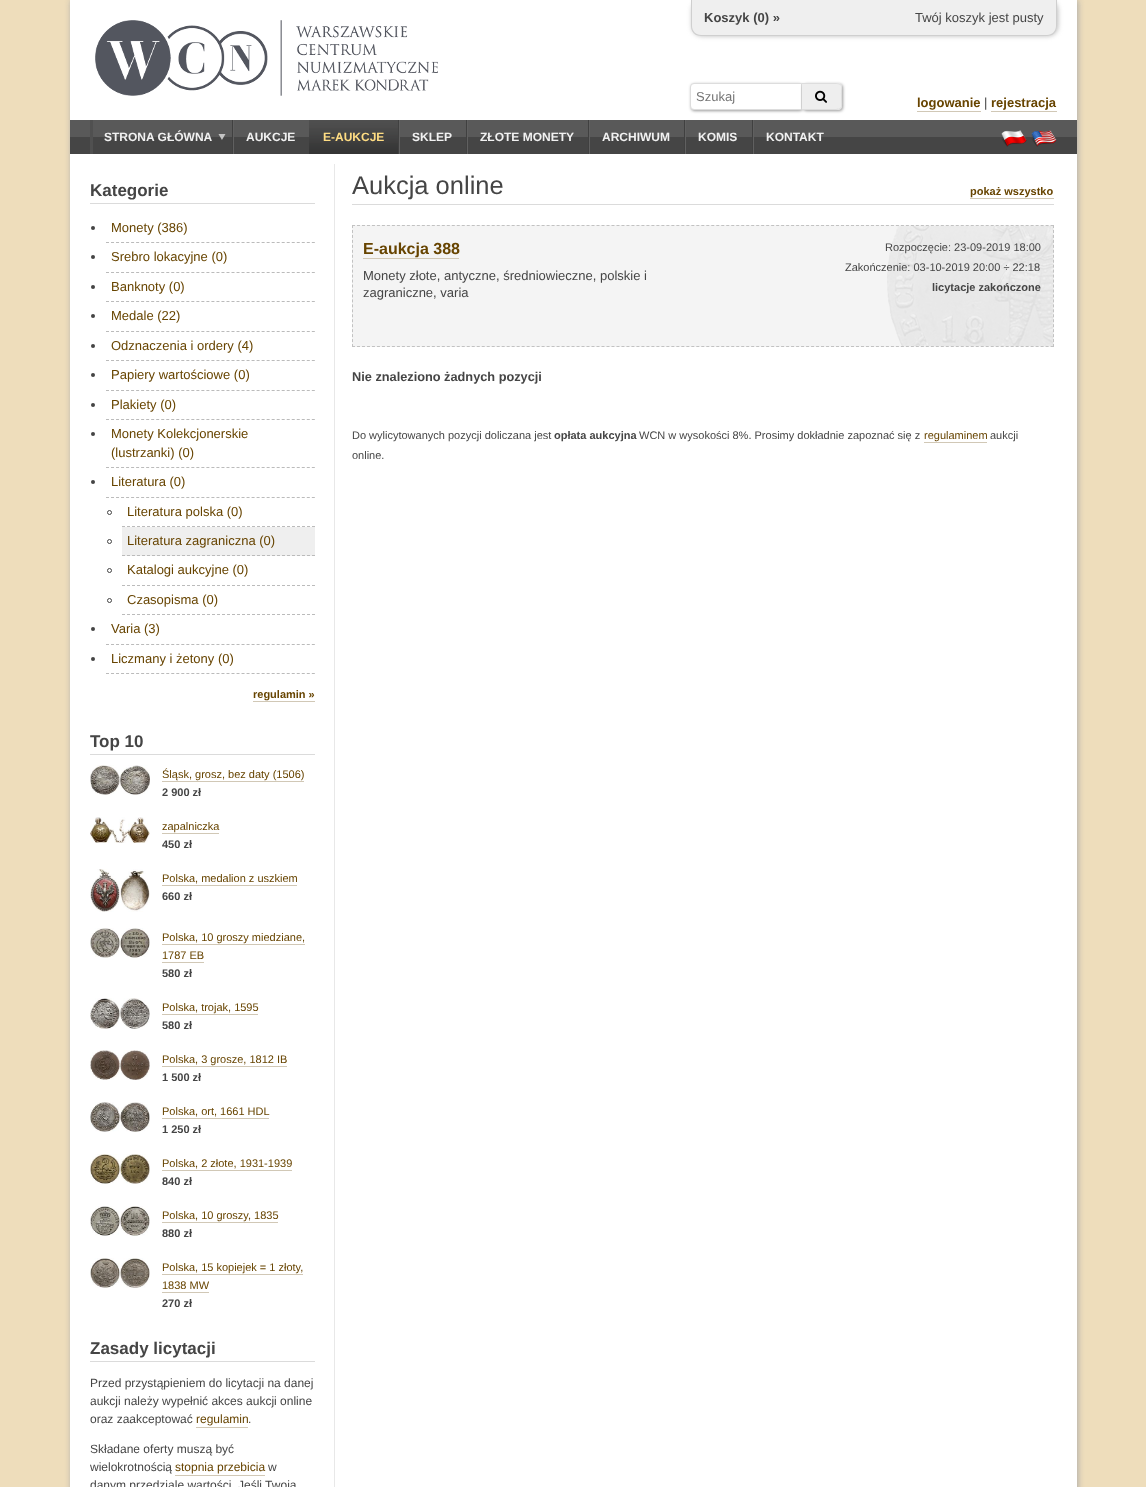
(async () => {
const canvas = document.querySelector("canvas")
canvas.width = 1146
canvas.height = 1487
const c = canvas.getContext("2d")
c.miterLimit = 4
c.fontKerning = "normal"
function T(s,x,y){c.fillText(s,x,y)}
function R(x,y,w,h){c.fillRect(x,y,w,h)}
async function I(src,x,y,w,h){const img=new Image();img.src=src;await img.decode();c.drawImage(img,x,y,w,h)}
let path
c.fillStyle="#edb"
R(0,0,1146,1487)
c.fillStyle="#aaa"
c.filter="blur(3px)"
c.beginPath()
c.rect(71,0,1007,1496)
c.fill()
c.filter="none"
c.fillStyle="#fff"
R(70,0,1007,1487)
c.fillStyle="#bbb"
c.filter="blur(2.5px)"
c.beginPath()
c.roundRect(692,0,366,36,10)
c.fill()
c.filter="none"
c.fillStyle="#efefef"
c.beginPath()
c.roundRect(691,0,366,36,[0,0,10,10])
c.fill()
c.fillStyle="#cfcfcf"
path = new Path2D("M691 0h366v26c0 6-4 10-10 10h-346c-6 0-10-4-10-10zm1 0h364v26c0 5-4 9-9 9h-346c-5 0-9-4-9-9z")
c.fill(path,"evenodd")
c.font="bold 13px Liberation Sans"
c.fillStyle="#454545"
T("Koszyk (0) »",704,22)
c.font="13px Liberation Sans"
T("Twój koszyk jest pusty",915,22)
await I("1.png",95,20,343,76)
c.fillStyle="#00000066"
c.filter="blur(1.5px)"
c.beginPath()
c.roundRect(691,84,112,27,4)
c.fill()
c.filter="none"
c.fillStyle="#fff"
c.beginPath()
c.roundRect(690.5,83.5,111,26,[3.5,0,0,3.5])
c.fill()
c.strokeStyle="#ddd"
c.stroke()
c.fillStyle="#757575"
T("Szukaj",696,101)
c.fillStyle="#00000066"
c.filter="blur(1.5px)"
c.beginPath()
c.roundRect(803,84,40,27,4)
c.fill()
c.filter="none"
c.fillStyle="#eee"
c.beginPath()
c.roundRect(802,83,40,27,[0,4,4,0])
c.fill()
c.fillStyle="#ddd"
path = new Path2D("M802 83h30c12 0 10 2 10 13c0 12 2 14-10 14h-30zm0 1h30c12 0 9 1 9 12c0 12 3 13-9 13h-30z")
c.fill(path,"evenodd")
await I("2.png",815,90,12,13)
c.font="bold 13px Liberation Sans"
c.fillStyle="#674400"
T("logowanie",917,107)
c.fillStyle="#d1c8b6"
R(917,111,64,1)
c.font="13px Liberation Sans"
c.fillStyle="#454545"
T("|",984,107)
c.font="bold 13px Liberation Sans"
c.fillStyle="#674400"
T("rejestracja",991,107)
c.fillStyle="#d1c8b6"
R(991,111,66,1)
await I("3.png",70,120,1007,34)
c.fillStyle="#505050"
R(90,120,3,34)
c.font="bold 12px Liberation Sans"
c.fillStyle="#f1f1f1"
T("STRONA GŁÓWNA",104,141)
await I("4.png",218,134,8,6)
await I("5.png",232,120,2,34)
T("AUKCJE",246,141)
await I("6.png",309,120,89,34)
c.fillStyle="#ffdd83"
T("E-AUKCJE",323,141)
await I("5.png",398,120,2,34)
c.fillStyle="#f1f1f1"
T("SKLEP",412,141)
await I("5.png",466,120,2,34)
T("ZŁOTE MONETY",480,141)
await I("5.png",588,120,2,34)
T("ARCHIWUM",602,141)
await I("5.png",684,120,2,34)
T("KOMIS",698,141)
await I("5.png",752,120,2,34)
T("KONTAKT",766,141)
await I("7.png",1001,130,26,17)
await I("8.png",1031,130,26,17)
c.fillStyle="#e8e8e8"
R(334,164,1,1323)
c.fillStyle="#dbdbdb"
R(90,203,225,1)
c.font="bold 17px Liberation Sans"
c.fillStyle="#454545"
T("Kategorie",90,196)
c.fillStyle="#444"
c.beginPath()
c.arc(93,228,2,0,7)
c.fill()
path = new Path2D("M106 242.5h209")
c.strokeStyle="#bbb"
c.setLineDash([3,2.02])
c.stroke(path)
c.font="13px Liberation Sans"
c.fillStyle="#674400"
T("Monety (386)",111,232)
c.fillStyle="#444"
c.beginPath()
c.arc(93,257,2,0,7)
c.fill()
path = new Path2D("M106 272.5h209")
c.stroke(path)
c.fillStyle="#674400"
T("Srebro lokacyjne (0)",111,261)
c.fillStyle="#444"
c.beginPath()
c.arc(93,287,2,0,7)
c.fill()
path = new Path2D("M106 301.5h209")
c.stroke(path)
c.fillStyle="#674400"
T("Banknoty (0)",111,291)
c.fillStyle="#444"
c.beginPath()
c.arc(93,316,2,0,7)
c.fill()
path = new Path2D("M106 331.5h209")
c.stroke(path)
c.fillStyle="#674400"
T("Medale (22)",111,320)
c.fillStyle="#444"
c.beginPath()
c.arc(93,346,2,0,7)
c.fill()
path = new Path2D("M106 360.5h209")
c.stroke(path)
c.fillStyle="#674400"
T("Odznaczenia i ordery (4)",111,350)
c.fillStyle="#444"
c.beginPath()
c.arc(93,375,2,0,7)
c.fill()
path = new Path2D("M106 390.5h209")
c.stroke(path)
c.fillStyle="#674400"
T("Papiery wartościowe (0)",111,379)
c.fillStyle="#444"
c.beginPath()
c.arc(93,405,2,0,7)
c.fill()
path = new Path2D("M106 419.5h209")
c.stroke(path)
c.fillStyle="#674400"
T("Plakiety (0)",111,409)
c.fillStyle="#444"
c.beginPath()
c.arc(93,434,2,0,7)
c.fill()
path = new Path2D("M106 467.5h209")
c.stroke(path)
c.fillStyle="#674400"
T("Monety Kolekcjonerskie",111,438)
T("(lustrzanki) (0)",111,457)
c.fillStyle="#444"
c.beginPath()
c.arc(93,482,2,0,7)
c.fill()
path = new Path2D("M106 497.5h209")
c.stroke(path)
c.fillStyle="#674400"
T("Literatura (0)",111,486)
c.beginPath()
c.arc(109.5,512.5,2,0,7)
c.strokeStyle="#444"
c.setLineDash([])
c.stroke()
path = new Path2D("M122 526.5h193")
c.strokeStyle="#bbb"
c.setLineDash([3,2])
c.stroke(path)
T("Literatura polska (0)",127,516)
c.beginPath()
c.arc(109.5,541.5,2,0,7)
c.strokeStyle="#444"
c.setLineDash([])
c.stroke()
c.fillStyle="#efefef"
R(122,527,193,29)
path = new Path2D("M122 555.5h193")
c.strokeStyle="#bbb"
c.setLineDash([3,2])
c.stroke(path)
c.fillStyle="#674400"
T("Literatura zagraniczna (0)",127,545)
c.beginPath()
c.arc(109.5,570.5,2,0,7)
c.strokeStyle="#444"
c.setLineDash([])
c.stroke()
path = new Path2D("M122 585.5h193")
c.strokeStyle="#bbb"
c.setLineDash([3,2])
c.stroke(path)
T("Katalogi aukcyjne (0)",127,574)
c.beginPath()
c.arc(109.5,600.5,2,0,7)
c.strokeStyle="#444"
c.setLineDash([])
c.stroke()
path = new Path2D("M122 614.5h193")
c.strokeStyle="#bbb"
c.setLineDash([3,2])
c.stroke(path)
T("Czasopisma (0)",127,604)
c.fillStyle="#444"
c.beginPath()
c.arc(93,629,2,0,7)
c.fill()
path = new Path2D("M106 644.5h209")
c.setLineDash([3,2.02])
c.stroke(path)
c.fillStyle="#674400"
T("Varia (3)",111,633)
c.fillStyle="#444"
c.beginPath()
c.arc(93,659,2,0,7)
c.fill()
path = new Path2D("M106 673.5h209")
c.stroke(path)
c.fillStyle="#674400"
T("Liczmany i żetony (0)",111,663)
c.font="bold 11px Liberation Sans"
T("regulamin »",253,698)
c.fillStyle="#d1c8b6"
R(253,701,62,1)
c.fillStyle="#dbdbdb"
R(90,754,225,1)
c.font="bold 17px Liberation Sans"
c.fillStyle="#454545"
T("Top 10",90,747)
await I("9.png",90,765,60,30)
c.font="11px Liberation Sans"
c.fillStyle="#674400"
T("Śląsk, grosz, bez daty (1506)",162,778)
c.fillStyle="#d1c8b6"
R(162,781,142,1)
c.font="bold 11px Liberation Sans"
c.fillStyle="#454545"
T("2 900 zł",162,796)
await I("10.png",90,817,60,26)
c.font="11px Liberation Sans"
c.fillStyle="#674400"
T("zapalniczka",162,830)
c.fillStyle="#d1c8b6"
R(162,833,57,1)
c.font="bold 11px Liberation Sans"
c.fillStyle="#454545"
T("450 zł",162,848)
await I("11.png",90,869,60,43)
c.font="11px Liberation Sans"
c.fillStyle="#674400"
T("Polska, medalion z uszkiem",162,882)
c.fillStyle="#d1c8b6"
R(162,885,135,1)
c.font="bold 11px Liberation Sans"
c.fillStyle="#454545"
T("660 zł",162,900)
await I("12.png",90,928,60,30)
c.font="11px Liberation Sans"
c.fillStyle="#674400"
T("Polska, 10 groszy miedziane,",162,941)
c.fillStyle="#d1c8b6"
R(162,944,143,1)
c.fillStyle="#674400"
T("1787 EB",162,959)
c.fillStyle="#d1c8b6"
R(162,962,42,1)
c.font="bold 11px Liberation Sans"
c.fillStyle="#454545"
T("580 zł",162,977)
await I("13.png",90,998,60,31)
c.font="11px Liberation Sans"
c.fillStyle="#674400"
T("Polska, trojak, 1595",162,1011)
c.fillStyle="#d1c8b6"
R(162,1014,96,1)
c.font="bold 11px Liberation Sans"
c.fillStyle="#454545"
T("580 zł",162,1029)
await I("14.png",90,1050,60,30)
c.font="11px Liberation Sans"
c.fillStyle="#674400"
T("Polska, 3 grosze, 1812 IB",162,1063)
c.fillStyle="#d1c8b6"
R(162,1066,125,1)
c.font="bold 11px Liberation Sans"
c.fillStyle="#454545"
T("1 500 zł",162,1081)
await I("15.png",90,1102,60,30)
c.font="11px Liberation Sans"
c.fillStyle="#674400"
T("Polska, ort, 1661 HDL",162,1115)
c.fillStyle="#d1c8b6"
R(162,1118,107,1)
c.font="bold 11px Liberation Sans"
c.fillStyle="#454545"
T("1 250 zł",162,1133)
await I("16.png",90,1154,60,30)
c.font="11px Liberation Sans"
c.fillStyle="#674400"
T("Polska, 2 złote, 1931-1939",162,1167)
c.fillStyle="#d1c8b6"
R(162,1170,130,1)
c.font="bold 11px Liberation Sans"
c.fillStyle="#454545"
T("840 zł",162,1185)
await I("17.png",90,1206,60,30)
c.font="11px Liberation Sans"
c.fillStyle="#674400"
T("Polska, 10 groszy, 1835",162,1219)
c.fillStyle="#d1c8b6"
R(162,1222,116,1)
c.font="bold 11px Liberation Sans"
c.fillStyle="#454545"
T("880 zł",162,1237)
await I("18.png",90,1258,60,30)
c.font="11px Liberation Sans"
c.fillStyle="#674400"
T("Polska, 15 kopiejek = 1 złoty,",162,1271)
c.fillStyle="#d1c8b6"
R(162,1274,141,1)
c.fillStyle="#674400"
T("1838 MW",162,1289)
c.fillStyle="#d1c8b6"
R(162,1292,47,1)
c.font="bold 11px Liberation Sans"
c.fillStyle="#454545"
T("270 zł",162,1307)
c.fillStyle="#dbdbdb"
R(90,1361,225,1)
c.font="bold 17px Liberation Sans"
c.fillStyle="#454545"
T("Zasady licytacji",90,1354)
c.font="12px Liberation Sans"
T("Przed przystąpieniem do licytacji na danej",90,1387)
T("aukcji należy wypełnić akces aukcji online",90,1405)
T("oraz zaakceptować",90,1423)
c.fillStyle="#674400"
T("regulamin",196,1423)
c.fillStyle="#d1c8b6"
R(196,1427,52,1)
c.fillStyle="#454545"
T(".",248,1423)
T("Składane oferty muszą być",90,1453)
T("wielokrotnością",90,1471)
c.fillStyle="#674400"
T("stopnia przebicia",175,1471)
c.fillStyle="#d1c8b6"
R(175,1475,90,1)
c.fillStyle="#454545"
T("w",268,1471)
T("danym przedziale wartości",90,1489)
T("Jeśli Twoja",238,1489)
c.fillStyle="#dbdbdb"
R(352,204,702,1)
c.font="25.5px Liberation Sans"
c.fillStyle="#454545"
T("Aukcja online",352,194)
c.font="bold 11px Liberation Sans"
c.fillStyle="#674400"
T("pokaż wszystko",970,195)
c.fillStyle="#d1c8b6"
R(970,198,84,1)
c.fillStyle="#f4f4f4"
R(352,225,702,122)
await I("19.png",887,226,166,120)
path = new Path2D("M352 225.5h702")
c.strokeStyle="#c2c2c2"
c.setLineDash([3,1.99])
c.stroke(path)
path = new Path2D("M1053.5 225v122")
c.setLineDash([3,1.96])
c.stroke(path)
path = new Path2D("M352 346.5h702")
c.setLineDash([3,1.99])
c.stroke(path)
path = new Path2D("M352.5 225v122")
c.setLineDash([3,1.96])
c.stroke(path)
c.font="bold 16px Liberation Sans"
c.fillStyle="#674400"
T("E-aukcja 388",363,254)
c.fillStyle="#d1c8b6"
R(363,258,96,1)
c.font="11px Liberation Sans"
c.fillStyle="#454545"
T("Rozpoczęcie: 23-09-2019 18:00",885,251)
T("Zakończenie: 03-10-2019 20:00 ÷ 22:18",845,271)
c.font="bold 11px Liberation Sans"
T("licytacje zakończone",932,291)
c.font="13px Liberation Sans"
T("Monety złote, antyczne, średniowieczne, polskie i",363,280)
T("zagraniczne, varia",363,297)
c.font="bold 12.75px Liberation Sans"
T("Nie znaleziono żadnych pozycji",352,381)
c.font="11px Liberation Sans"
T("Do wylicytowanych pozycji doliczana jest",352,439)
c.font="bold 11px Liberation Sans"
T("opłata aukcyjna",554,439)
c.font="11px Liberation Sans"
T("WCN w wysokości 8%. Prosimy dokładnie zapoznać się z",639,439)
c.fillStyle="#674400"
T("regulaminem",924,439)
c.fillStyle="#d1c8b6"
R(924,442,63,1)
c.fillStyle="#454545"
T("aukcji",990,439)
T("online.",352,459)
})()
